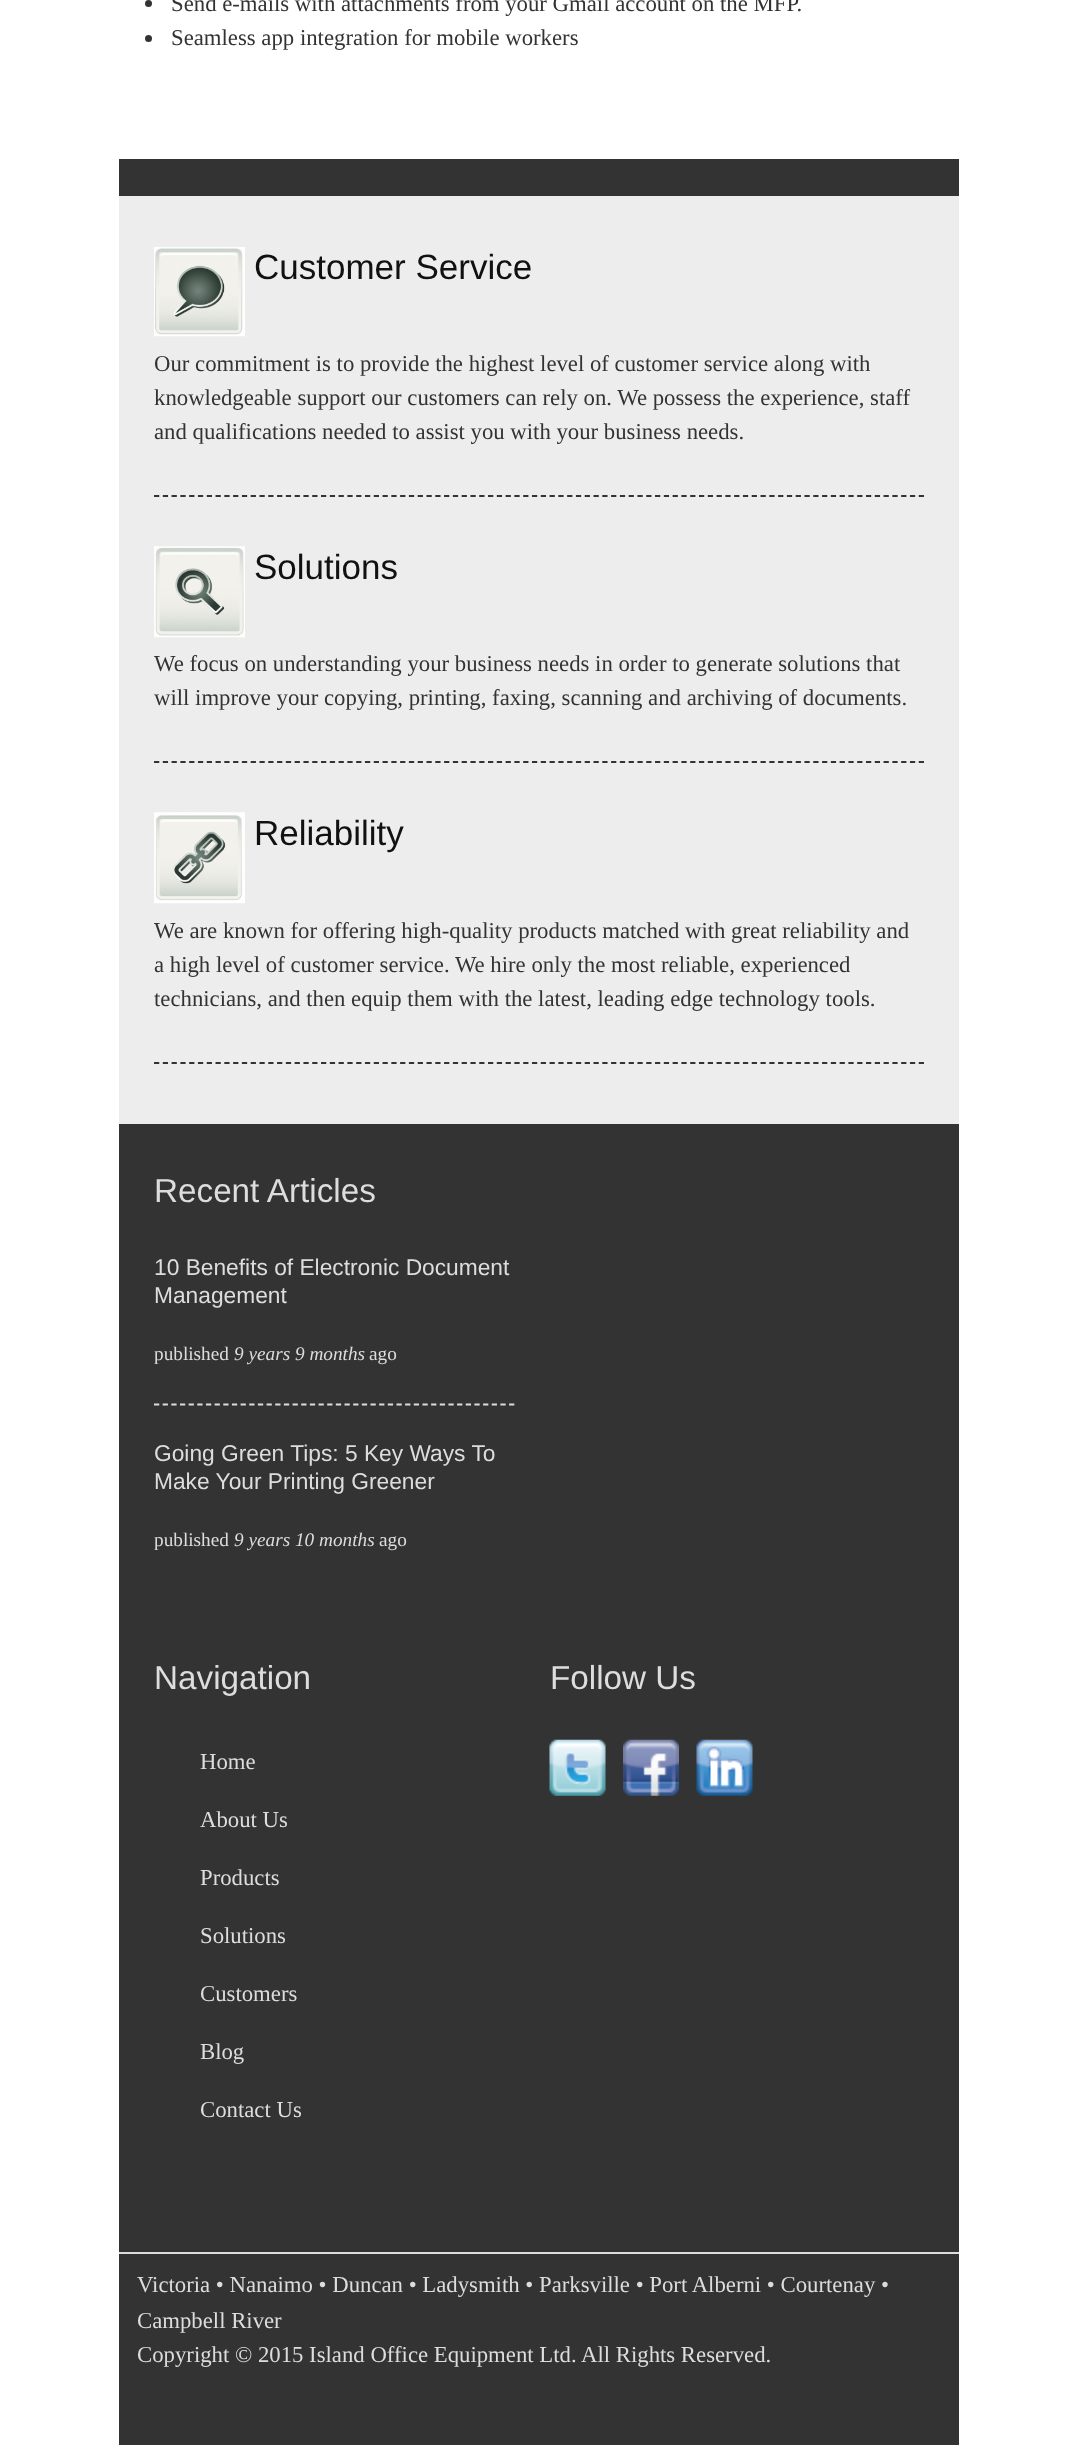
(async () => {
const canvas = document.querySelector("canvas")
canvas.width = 1078
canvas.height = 2445
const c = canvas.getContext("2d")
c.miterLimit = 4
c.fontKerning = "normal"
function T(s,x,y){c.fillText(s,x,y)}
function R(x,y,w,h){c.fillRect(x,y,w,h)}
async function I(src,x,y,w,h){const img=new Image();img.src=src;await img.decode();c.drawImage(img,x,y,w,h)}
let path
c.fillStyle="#fff"
R(0,0,1078,2445)
c.fillStyle="#333"
c.beginPath()
c.arc(148.5,3.5,3.5,0,7)
c.fill()
c.font="22.75px Liberation Serif"
T("Send e-mails with attachments from your Gmail account on the MFP.",171,11)
c.beginPath()
c.arc(148.5,38.5,3.5,0,7)
c.fill()
T("Seamless app integration for mobile workers",171,45)
c.fillStyle="#ededed"
R(119,196,840,928)
c.fillStyle="#333"
R(119,159,840,37)
path = new Path2D("M154 496h770")
c.strokeStyle="#333"
c.lineWidth=1.8
c.setLineDash([5.25,3.54])
c.stroke(path)
await I("1.png",154,247,91,90)
c.font="35px Liberation Sans"
c.fillStyle="#111"
T("Customer Service",254,279)
c.font="22.75px Liberation Serif"
c.fillStyle="#333"
T("Our commitment is to provide the highest level of customer service along with",154,371)
T("knowledgeable support our customers can rely on. We possess the experience, staff",154,405)
T("and qualifications needed to assist you with your business needs.",154,439)
path = new Path2D("M154 762h770")
c.stroke(path)
await I("2.png",154,546,91,92)
c.font="35px Liberation Sans"
c.fillStyle="#111"
T("Solutions",254,579)
c.font="22.75px Liberation Serif"
c.fillStyle="#333"
T("We focus on understanding your business needs in order to generate solutions that",154,671)
T("will improve your copying, printing, faxing, scanning and archiving of documents.",154,705)
path = new Path2D("M154 1063h770")
c.stroke(path)
await I("3.png",154,812,91,92)
c.font="35px Liberation Sans"
c.fillStyle="#111"
T("Reliability",254,845)
c.font="22.75px Liberation Serif"
c.fillStyle="#333"
T("We are known for offering high-quality products matched with great reliability and",154,938)
T("a high level of customer service. We hire only the most reliable, experienced",154,972)
T("technicians, and then equip them with the latest, leading edge technology tools.",154,1006)
R(119,1124,840,1321)
c.font="33.25px Liberation Sans"
c.fillStyle="#ddd"
T("Recent Articles",154,1202)
path = new Path2D("M154 1404.5h360.5")
c.strokeStyle="#ddd"
c.setLineDash([5.25,3.41])
c.stroke(path)
c.font="22.75px Liberation Sans"
T("10 Benefits of Electronic Document",154,1275)
T("Management",154,1303)
c.font="19.25px Liberation Serif"
T("published",154,1360)
c.font="italic 19.25px Liberation Serif"
T("9 years 9 months",234,1360)
c.font="19.25px Liberation Serif"
T("ago",369,1360)
c.font="22.75px Liberation Sans"
T("Going Green Tips: 5 Key Ways To",154,1461)
T("Make Your Printing Greener",154,1489)
c.font="19.25px Liberation Serif"
T("published",154,1546)
c.font="italic 19.25px Liberation Serif"
T("9 years 10 months",234,1546)
c.font="19.25px Liberation Serif"
T("ago",379,1546)
c.font="33.25px Liberation Sans"
T("Navigation",154,1689)
c.font="22.75px Liberation Serif"
T("Home",200,1769)
T("About Us",200,1827)
T("Products",200,1885)
T("Solutions",200,1943)
T("Customers",200,2001)
T("Blog",200,2059)
T("Contact Us",200,2117)
c.font="33.25px Liberation Sans"
T("Follow Us",550,1689)
await I("4.png",549,1739,57,57)
await I("5.png",623,1739,56,57)
await I("6.png",696,1739,57,57)
R(119,2252,840,2)
c.font="22.75px Liberation Serif"
T("Victoria • Nanaimo • Duncan • Ladysmith • Parksville • Port Alberni • Courtenay •",137,2292)
T("Campbell River",137,2328)
T("Copyright © 2015 Island Office Equipment Ltd. All Rights Reserved.",137,2362)
})()
